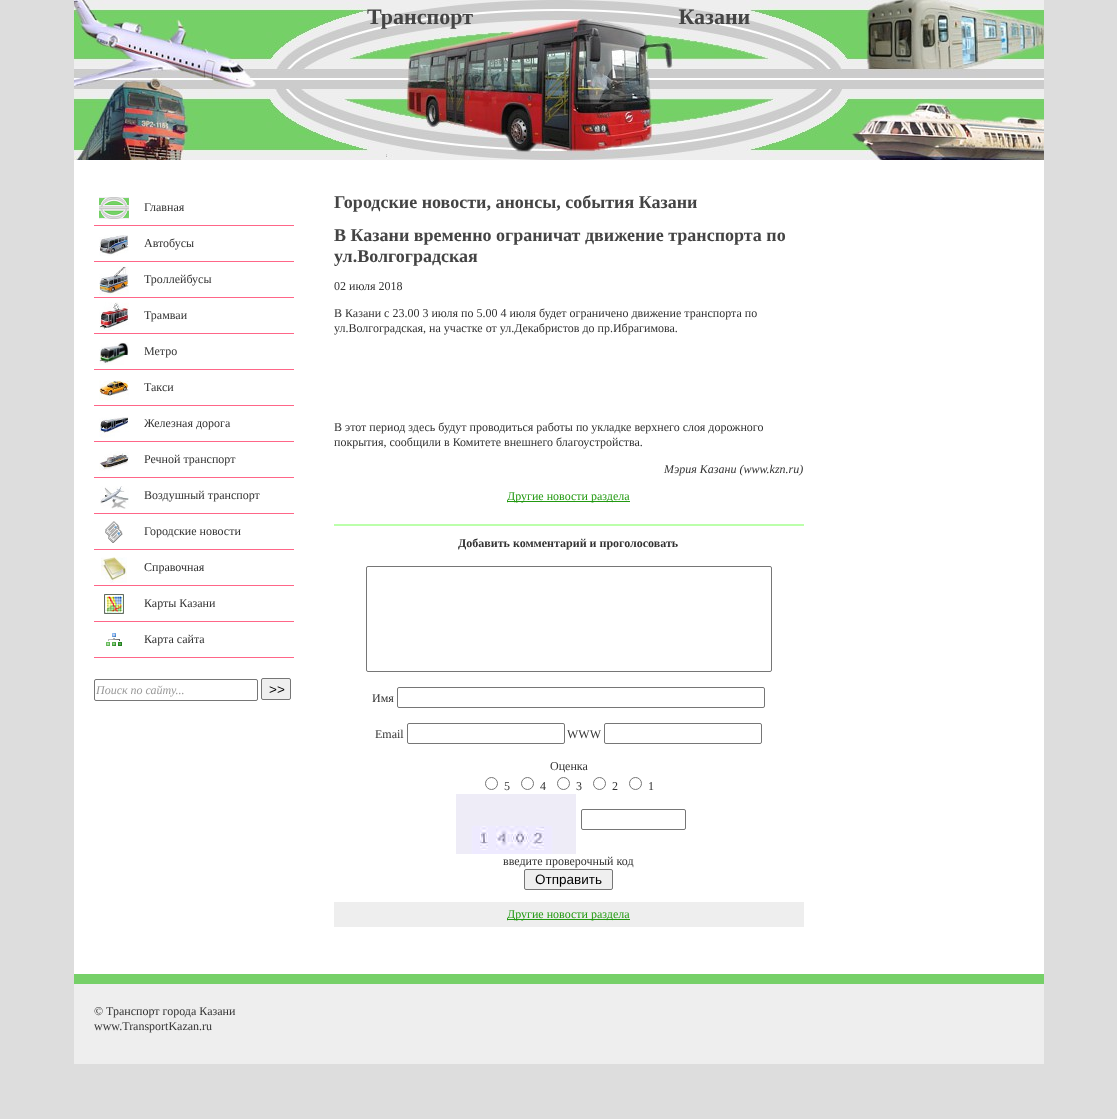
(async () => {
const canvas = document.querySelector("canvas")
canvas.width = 1117
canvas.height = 1119
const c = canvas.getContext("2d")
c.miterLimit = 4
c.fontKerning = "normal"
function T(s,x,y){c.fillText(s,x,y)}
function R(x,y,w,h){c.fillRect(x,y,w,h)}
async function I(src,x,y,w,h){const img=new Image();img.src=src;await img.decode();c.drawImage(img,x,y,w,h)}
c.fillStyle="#ddd"
R(0,0,1117,1119)
c.fillStyle="#fff"
R(74,160,970,814)
await I("1.png",74,0,970,160)
c.wordSpacing="200px"
c.font="bold 22px Liberation Serif"
c.fillStyle="#444"
T("Транспорт Казани",367,24)
c.fillStyle="#f68"
R(94,225,200,1)
await I("2.png",99,197,30,22)
c.wordSpacing="0px"
c.font="12px Liberation Serif"
c.fillStyle="#333"
T("Главная",144,211)
c.fillStyle="#f68"
R(94,261,200,1)
await I("3.png",99,235,30,21)
c.fillStyle="#333"
T("Автобусы",144,247)
c.fillStyle="#f68"
R(94,297,200,1)
await I("4.png",99,266,30,29)
c.fillStyle="#333"
T("Троллейбусы",144,283)
c.fillStyle="#f68"
R(94,333,200,1)
await I("5.png",99,302,30,29)
c.fillStyle="#333"
T("Трамваи",144,319)
c.fillStyle="#f68"
R(94,369,200,1)
await I("6.png",99,342,30,23)
c.fillStyle="#333"
T("Метро",144,355)
c.fillStyle="#f68"
R(94,405,200,1)
await I("7.png",99,380,30,21)
c.fillStyle="#333"
T("Такси",144,391)
c.fillStyle="#f68"
R(94,441,200,1)
await I("8.png",99,417,30,21)
c.fillStyle="#333"
T("Железная дорога",144,427)
c.fillStyle="#f68"
R(94,477,200,1)
await I("9.png",99,451,30,20)
c.fillStyle="#333"
T("Речной транспорт",144,463)
c.fillStyle="#f68"
R(94,513,200,1)
await I("10.png",100,486,29,23)
c.fillStyle="#333"
T("Воздушный транспорт",144,499)
c.fillStyle="#f68"
R(94,549,200,1)
await I("11.png",105,521,18,22)
c.fillStyle="#333"
T("Городские новости",144,535)
c.fillStyle="#f68"
R(94,585,200,1)
await I("12.png",101,557,26,26)
c.fillStyle="#333"
T("Справочная",144,571)
c.fillStyle="#f68"
R(94,621,200,1)
await I("13.png",104,594,20,20)
c.fillStyle="#333"
T("Карты Казани",144,607)
c.fillStyle="#f68"
R(94,657,200,1)
await I("14.png",106,633,16,13)
c.fillStyle="#333"
T("Карта сайта",144,643)
c.beginPath()
c.roundRect(94.5,679.5,163,21,1.5)
c.strokeStyle="#767676"
c.stroke()
c.font="italic 12px Liberation Serif"
c.fillStyle="#999"
T("Поиск по сайту...",96,694)
c.fillStyle="#efefef"
c.beginPath()
c.roundRect(261.5,678.5,29,21,1.5)
c.fill()
c.stroke()
c.font="13.5px Liberation Sans"
c.fillStyle="#000"
T(">>",269,694)
c.font="bold 18px Liberation Serif"
c.fillStyle="#444"
T("Городские новости, анонсы, события Казани",334,208)
T("В Казани временно ограничат движение транспорта по",334,241)
T("ул.Волгоградская",334,262)
c.font="12px Liberation Serif"
c.fillStyle="#333"
T("02 июля 2018",334,290)
T("В Казани с 23.00 3 июля по 5.00 4 июля будет ограничено движение транспорта по",334,317)
T("ул.Волгоградская, на участке от ул.Декабристов до пр.Ибрагимова.",334,332)
T("В этот период здесь будут проводиться работы по укладке верхнего слоя дорожного",334,431)
T("покрытия, сообщили в Комитете внешнего благоустройства.",334,446)
c.font="italic 12px Liberation Serif"
T("Мэрия Казани (www.kzn.ru)",664,473)
c.fillStyle="#291"
R(507,501,123,1)
c.font="12px Liberation Serif"
T("Другие новости раздела",507,500)
c.fillStyle="#bfa"
R(334,524,470,2)
c.font="bold 12px Liberation Serif"
c.fillStyle="#333"
T("Добавить комментарий и проголосовать",458,547)
c.beginPath()
c.roundRect(366.5,566.5,405,105,1.5)
c.stroke()
c.font="12px Liberation Serif"
T("Имя",372,702)
c.beginPath()
c.roundRect(397.5,687.5,367,20,1.5)
c.stroke()
T("Email",375,738)
c.beginPath()
c.roundRect(407.5,723.5,157,20,1.5)
c.stroke()
T("WWW",567,738)
c.beginPath()
c.roundRect(604.5,723.5,157,20,1.5)
c.stroke()
T("Оценка",550,770)
c.beginPath()
c.arc(491.5,783.5,6,0,7)
c.stroke()
T("5",504,790)
c.beginPath()
c.arc(527.5,783.5,6,0,7)
c.stroke()
T("4",540,790)
c.beginPath()
c.arc(563.5,783.5,6,0,7)
c.stroke()
T("3",576,790)
c.beginPath()
c.arc(599.5,783.5,6,0,7)
c.stroke()
T("2",612,790)
c.beginPath()
c.arc(635.5,783.5,6,0,7)
c.stroke()
T("1",648,790)
await I("15.png",456,794,120,60)
c.beginPath()
c.roundRect(581.5,809.5,104,20,1.5)
c.stroke()
T("введите проверочный код",503,865)
c.fillStyle="#efefef"
c.beginPath()
c.roundRect(524.5,869.5,88,20,1.5)
c.fill()
c.stroke()
c.font="13.5px Liberation Sans"
c.fillStyle="#000"
T("Отправить",535,884)
c.fillStyle="#eee"
R(334,902,470,25)
c.fillStyle="#291"
R(507,919,123,1)
c.font="12px Liberation Serif"
T("Другие новости раздела",507,918)
c.fillStyle="#eee"
R(74,984,970,80)
c.fillStyle="#76d068"
R(74,974,970,10)
c.fillStyle="#333"
T("© Транспорт города Казани",94,1015)
T("www.TransportKazan.ru",94,1030)
})()
